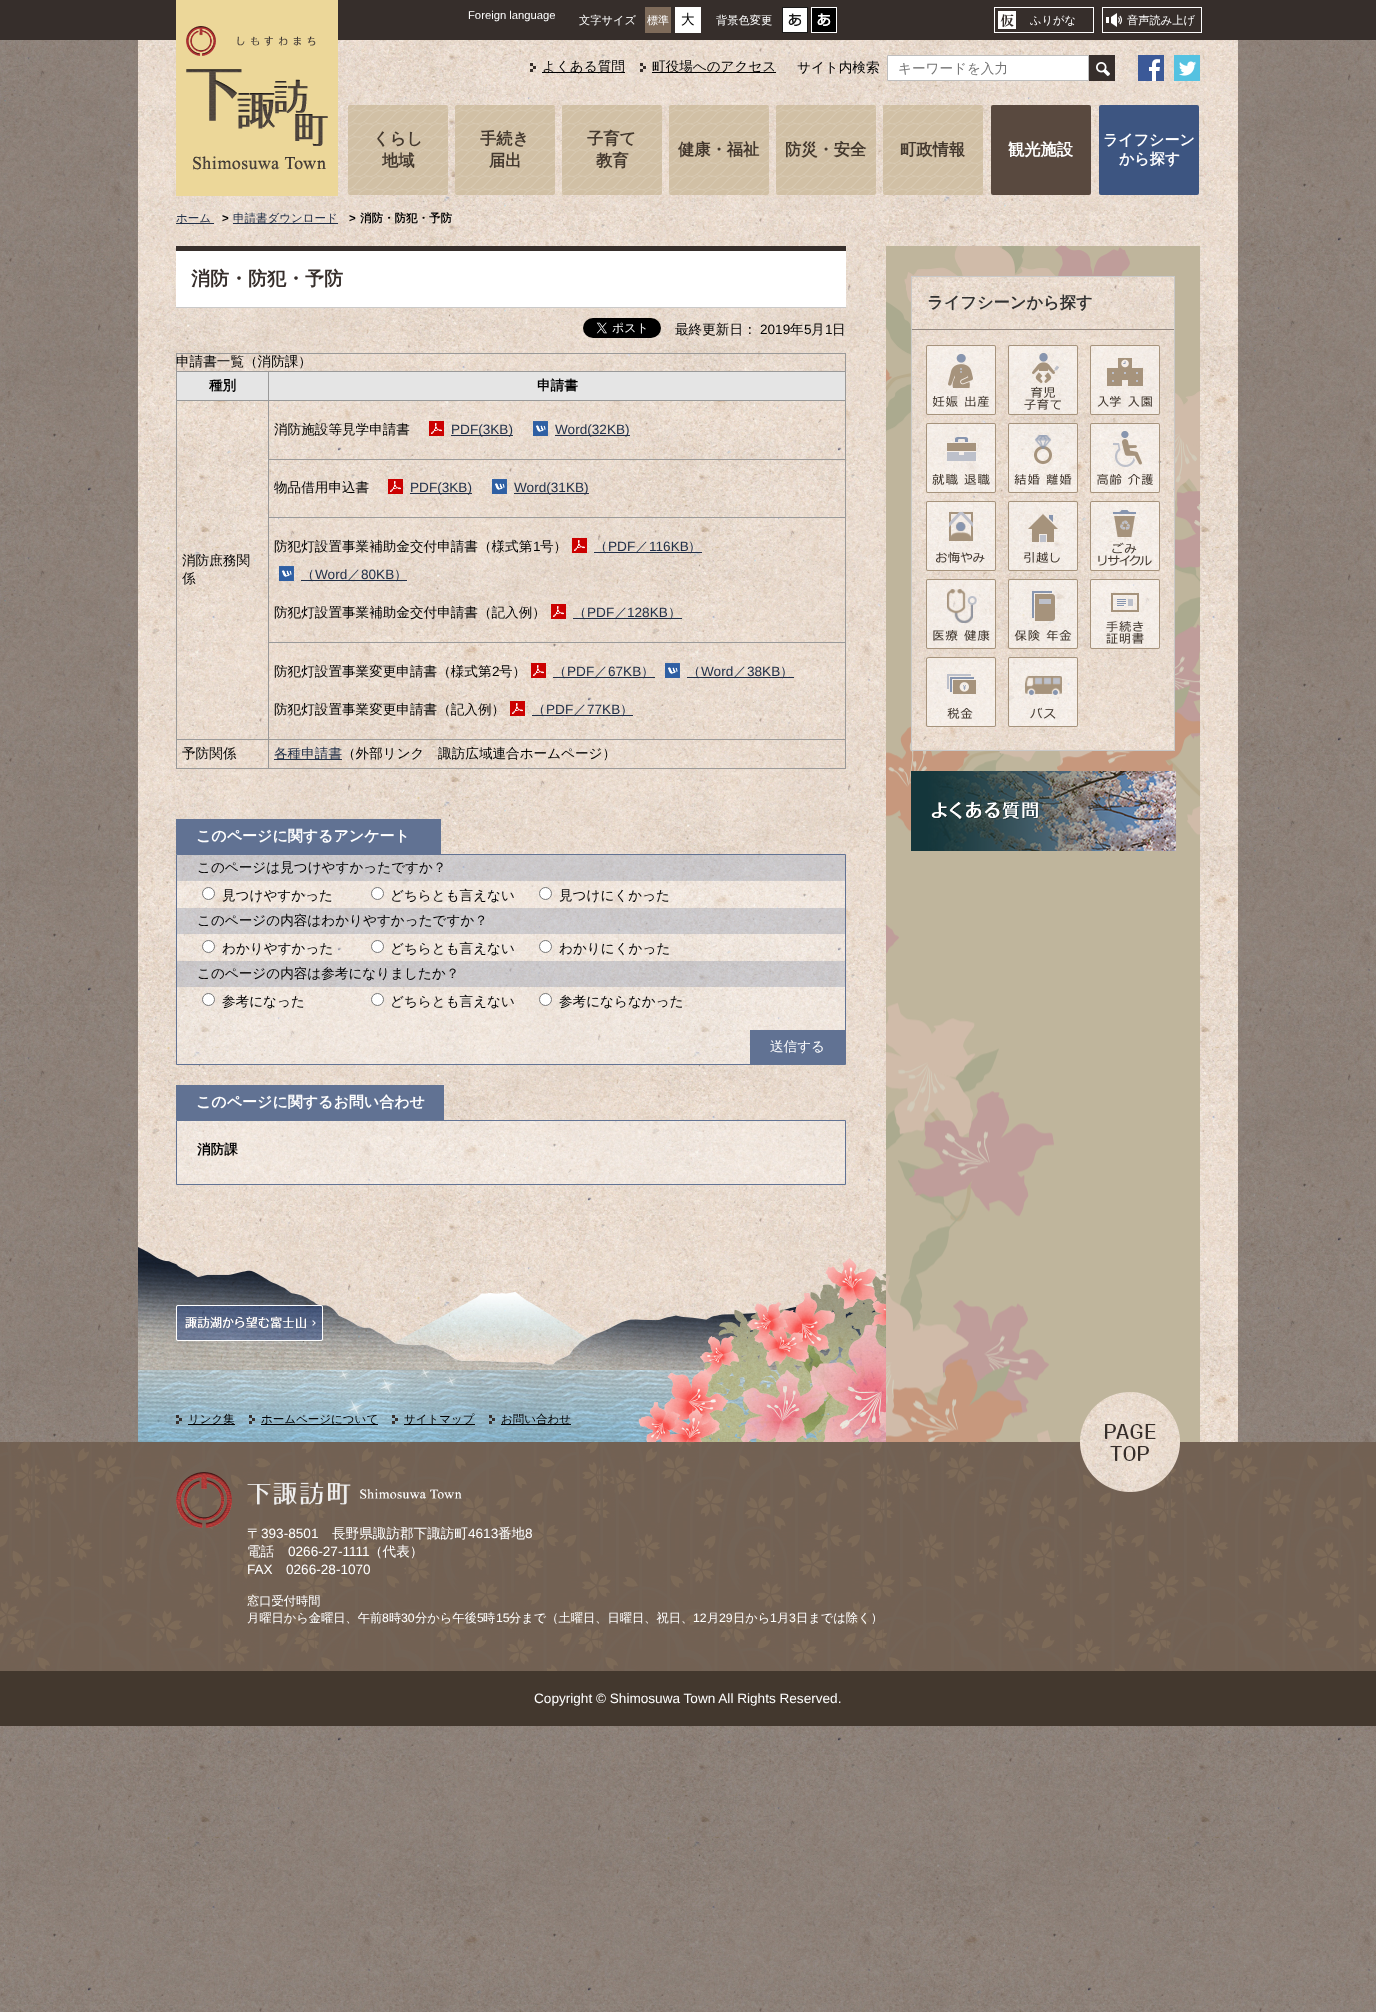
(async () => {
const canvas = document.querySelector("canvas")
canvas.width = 1376
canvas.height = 2012
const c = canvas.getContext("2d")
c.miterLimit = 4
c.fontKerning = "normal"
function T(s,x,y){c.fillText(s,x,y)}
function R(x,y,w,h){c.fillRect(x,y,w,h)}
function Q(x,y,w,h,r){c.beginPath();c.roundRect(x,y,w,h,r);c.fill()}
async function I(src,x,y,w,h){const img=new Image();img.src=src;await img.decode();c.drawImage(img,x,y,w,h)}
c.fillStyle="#fff"
R(0,0,1376,2012)
await I("1.png",0,40,1376,1972)
c.fillStyle="#362e2b"
R(0,0,1376,40)
await I("7.png",138,40,1100,65)
await I("13.png",138,105,1100,105)
await I("2.png",176,0,162,196)
c.font="11.25px Liberation Sans"
c.fillStyle="#fff"
T("Foreign language",468,19)
c.font="500 11.25px WenQuanYi Zen Hei"
T("文字サイズ",579,24)
c.fillStyle="#7e6b5a"
R(645,7,26,26)
c.font="500 11px WenQuanYi Zen Hei"
c.fillStyle="#fff"
T("標準",647,24)
R(675,7,26,26)
c.font="500 13.6px WenQuanYi Zen Hei"
c.fillStyle="#000"
T("大",681,24)
c.font="500 11.25px WenQuanYi Zen Hei"
c.fillStyle="#fff"
T("背景色変更",716,24)
await I("3.png",782,7,26,26)
await I("4.png",811,7,26,26)
await I("5.png",998,11,18,18)
c.strokeStyle="#fff"
c.strokeRect(994.5,7.5,99,25)
T("ふりがな",1030,24)
await I("6.png",1106,13,16,14)
c.strokeRect(1102.5,7.5,99,25)
T("音声読み上げ",1127,24)
await I("8.png",530,63,6,9)
c.fillStyle="#000"
R(542,72,83,1)
c.font="500 13.6px WenQuanYi Zen Hei"
T("よくある質問",542,71)
await I("9.png",640,63,6,9)
R(652,72,124,1)
T("町役場へのアクセス",652,71)
T("サイト内検索",797,72)
c.fillStyle="#fff"
c.beginPath()
c.rect(887.5,55.5,201,25)
c.fill()
c.strokeStyle="#bebebe"
c.stroke()
c.fillStyle="#757575"
T("キーワードを入力",898,73)
await I("10.png",1089,55,26,26)
await I("11.png",1138,55,26,26)
await I("12.png",1174,55,26,26)
await I("14.png",348,105,100,90)
c.font="bold 16.25px WenQuanYi Zen Hei"
c.fillStyle="#43382e"
T("くらし",373,144)
T("地域",382,166)
await I("15.png",455,105,100,90)
T("手続き",480,144)
T("届出",489,166)
await I("16.png",562,105,100,90)
T("子育て",587,144)
T("教育",596,166)
await I("17.png",669,105,100,90)
T("健康・福祉",678,155)
await I("18.png",776,105,100,90)
T("防災・安全",785,155)
await I("19.png",883,105,100,90)
T("町政情報",900,155)
c.fillStyle="#59493f"
Q(991,105,100,90,2)
c.fillStyle="#fff"
T("観光施設",1008,155)
c.fillStyle="#3d5581"
Q(1099,105,100,90,2)
c.font="bold 15px WenQuanYi Zen Hei"
c.fillStyle="#fff"
T("ライフシーン",1103,145)
T("から探す",1119,164)
await I("20.png",138,210,1100,1232)
c.fillStyle="#223048"
R(176,223,38,1)
c.font="500 11.5px WenQuanYi Zen Hei"
T("ホーム",176,222)
c.font="bold 11.5px Liberation Sans"
c.fillStyle="#000"
T(">",222,222)
c.fillStyle="#223048"
R(233,223,105,1)
c.font="500 11.5px WenQuanYi Zen Hei"
T("申請書ダウンロード",233,222)
c.font="bold 11.5px Liberation Sans"
c.fillStyle="#000"
T(">",349,222)
c.font="bold 11.5px WenQuanYi Zen Hei"
T("消防・防犯・予防",360,222)
await I("21.png",886,246,314,1196)
c.fillStyle="#fff"
R(176,251,670,56)
c.fillStyle="#362e2b"
R(176,246,670,5)
c.fillStyle="#c9c9c9"
R(176,307,670,1)
c.font="bold 19px WenQuanYi Zen Hei"
c.fillStyle="#362e2b"
T("消防・防犯・予防",191,285)
await I("22.png",583,318,78,20)
c.font="500 13.6px WenQuanYi Zen Hei"
c.fillStyle="#000"
T("最終更新日：",675,334)
c.font="13.6px Liberation Sans"
T("2019",760,334)
c.font="500 13.6px WenQuanYi Zen Hei"
T("年",790,334)
c.font="13.6px Liberation Sans"
T("5",804,334)
c.font="500 13.6px WenQuanYi Zen Hei"
T("月",811,334)
c.font="13.6px Liberation Sans"
T("1",825,334)
c.font="500 13.6px WenQuanYi Zen Hei"
T("日",832,334)
c.fillStyle="#999"
R(176,353,670,1)
R(845,353,1,416)
R(176,768,670,1)
R(176,353,1,416)
c.fillStyle="#000"
T("申請書一覧（消防課）",176,366)
c.fillStyle="#e5e5e5"
R(177,372,91,28)
c.fillStyle="#999"
R(268,371,578,1)
R(268,400,578,1)
R(268,459,578,1)
R(268,517,578,1)
R(268,642,578,1)
R(268,739,578,1)
R(268,739,1,30)
R(176,739,93,1)
R(268,642,1,98)
R(268,517,1,126)
R(268,459,1,59)
R(268,400,1,60)
R(176,400,93,1)
R(268,371,1,30)
R(176,371,93,1)
c.font="bold 13.6px WenQuanYi Zen Hei"
c.fillStyle="#000"
T("種別",209,390)
c.fillStyle="#e5e5e5"
R(269,372,576,28)
c.fillStyle="#000"
T("申請書",537,390)
c.font="500 13.6px WenQuanYi Zen Hei"
T("消防施設等見学申請書",274,434)
await I("23.png",429,421,15,15)
c.fillStyle="#223048"
R(451,435,62,1)
c.font="13.6px Liberation Sans"
T("PDF(3KB)",451,434)
await I("24.png",533,421,15,15)
R(555,435,75,1)
T("Word(32KB)",555,434)
c.font="500 13.6px WenQuanYi Zen Hei"
c.fillStyle="#000"
T("消防庶務関",182,565)
T("係",182,583)
T("物品借用申込書",274,492)
await I("23.png",388,479,15,15)
c.fillStyle="#223048"
R(410,493,62,1)
c.font="13.6px Liberation Sans"
T("PDF(3KB)",410,492)
await I("25.png",492,479,15,15)
R(514,493,75,1)
T("Word(31KB)",514,492)
c.font="500 13.6px WenQuanYi Zen Hei"
c.fillStyle="#000"
T("防犯灯設置事業補助金交付申請書（様式第",274,551)
c.font="13.6px Liberation Sans"
T("1",533,551)
c.font="500 13.6px WenQuanYi Zen Hei"
T("号）",540,551)
await I("23.png",572,538,15,15)
c.fillStyle="#223048"
R(594,552,108,1)
T("（",594,551)
c.font="13.6px Liberation Sans"
T("PDF",608,551)
c.font="500 13.6px WenQuanYi Zen Hei"
T("／",635,551)
c.font="13.6px Liberation Sans"
T("116KB",649,551)
c.font="500 13.6px WenQuanYi Zen Hei"
T("）",688,551)
await I("26.png",279,566,15,15)
R(301,580,106,1)
T("（",301,579)
c.font="13.6px Liberation Sans"
T("Word",315,579)
c.font="500 13.6px WenQuanYi Zen Hei"
T("／",347,579)
c.font="13.6px Liberation Sans"
T("80KB",361,579)
c.font="500 13.6px WenQuanYi Zen Hei"
T("）",394,579)
c.fillStyle="#000"
T("防犯灯設置事業補助金交付申請書（記入例）",274,617)
await I("23.png",551,604,15,15)
c.fillStyle="#223048"
R(573,618,109,1)
T("（",573,617)
c.font="13.6px Liberation Sans"
T("PDF",587,617)
c.font="500 13.6px WenQuanYi Zen Hei"
T("／",614,617)
c.font="13.6px Liberation Sans"
T("128KB",627,617)
c.font="500 13.6px WenQuanYi Zen Hei"
T("）",668,617)
c.fillStyle="#000"
T("防犯灯設置事業変更申請書（様式第",274,676)
c.font="13.6px Liberation Sans"
T("2",492,676)
c.font="500 13.6px WenQuanYi Zen Hei"
T("号）",499,676)
await I("23.png",531,663,15,15)
c.fillStyle="#223048"
R(553,677,102,1)
T("（",553,676)
c.font="13.6px Liberation Sans"
T("PDF",567,676)
c.font="500 13.6px WenQuanYi Zen Hei"
T("／",594,676)
c.font="13.6px Liberation Sans"
T("67KB",608,676)
c.font="500 13.6px WenQuanYi Zen Hei"
T("）",641,676)
await I("27.png",665,663,15,15)
R(687,677,107,1)
T("（",687,676)
c.font="13.6px Liberation Sans"
T("Word",701,676)
c.font="500 13.6px WenQuanYi Zen Hei"
T("／",733,676)
c.font="13.6px Liberation Sans"
T("38KB",747,676)
c.font="500 13.6px WenQuanYi Zen Hei"
T("）",780,676)
c.fillStyle="#000"
T("防犯灯設置事業変更申請書（記入例）",274,714)
await I("23.png",510,701,15,15)
c.fillStyle="#223048"
R(532,715,101,1)
T("（",532,714)
c.font="13.6px Liberation Sans"
T("PDF",546,714)
c.font="500 13.6px WenQuanYi Zen Hei"
T("／",573,714)
c.font="13.6px Liberation Sans"
T("77KB",587,714)
c.font="500 13.6px WenQuanYi Zen Hei"
T("）",620,714)
c.fillStyle="#000"
T("予防関係",182,758)
c.fillStyle="#223048"
R(274,759,68,1)
T("各種申請書",274,758)
c.fillStyle="#000"
T("（外部リンク　諏訪広域連合ホームページ）",342,758)
c.fillStyle="#617293"
R(176,819,265,35)
c.font="bold 15px WenQuanYi Zen Hei"
c.fillStyle="#fff"
T("このページに関するアンケート",196,841)
c.fillStyle="#ffffff4d"
c.beginPath()
c.rect(176.5,854.5,669,210)
c.fill()
c.strokeStyle="#617293"
c.stroke()
c.fillStyle="#3d558133"
R(177,855,668,26)
c.font="500 13.6px WenQuanYi Zen Hei"
c.fillStyle="#000"
T("このページは見つけやすかったですか？",197,872)
c.fillStyle="#fff"
c.beginPath()
c.arc(208.5,893.5,6,0,7)
c.fill()
c.strokeStyle="#767676"
c.stroke()
c.fillStyle="#000"
T("見つけやすかった",222,900)
c.fillStyle="#fff"
c.beginPath()
c.arc(377.5,893.5,6,0,7)
c.fill()
c.stroke()
c.fillStyle="#000"
T("どちらとも言えない",390,900)
c.fillStyle="#fff"
c.beginPath()
c.arc(545.5,893.5,6,0,7)
c.fill()
c.stroke()
c.fillStyle="#000"
T("見つけにくかった",559,900)
c.fillStyle="#3d558133"
R(177,908,668,26)
c.fillStyle="#000"
T("このページの内容はわかりやすかったですか？",197,925)
c.fillStyle="#fff"
c.beginPath()
c.arc(208.5,946.5,6,0,7)
c.fill()
c.stroke()
c.fillStyle="#000"
T("わかりやすかった",222,953)
c.fillStyle="#fff"
c.beginPath()
c.arc(377.5,946.5,6,0,7)
c.fill()
c.stroke()
c.fillStyle="#000"
T("どちらとも言えない",390,953)
c.fillStyle="#fff"
c.beginPath()
c.arc(545.5,946.5,6,0,7)
c.fill()
c.stroke()
c.fillStyle="#000"
T("わかりにくかった",559,953)
c.fillStyle="#3d558133"
R(177,961,668,26)
c.fillStyle="#000"
T("このページの内容は参考になりましたか？",197,978)
c.fillStyle="#fff"
c.beginPath()
c.arc(208.5,999.5,6,0,7)
c.fill()
c.stroke()
c.fillStyle="#000"
T("参考になった",222,1006)
c.fillStyle="#fff"
c.beginPath()
c.arc(377.5,999.5,6,0,7)
c.fill()
c.stroke()
c.fillStyle="#000"
T("どちらとも言えない",390,1006)
c.fillStyle="#fff"
c.beginPath()
c.arc(545.5,999.5,6,0,7)
c.fill()
c.stroke()
c.fillStyle="#000"
T("参考にならなかった",559,1006)
c.fillStyle="#617293"
R(750,1030,95,34)
c.fillStyle="#fff"
T("送信する",770,1051)
c.fillStyle="#617293"
R(176,1085,268,35)
c.font="bold 15px WenQuanYi Zen Hei"
c.fillStyle="#fff"
T("このページに関するお問い合わせ",196,1107)
c.fillStyle="#ffffff4d"
c.beginPath()
c.rect(176.5,1120.5,669,64)
c.fill()
c.strokeStyle="#617293"
c.stroke()
c.font="bold 13.6px WenQuanYi Zen Hei"
c.fillStyle="#000"
T("消防課",197,1154)
await I("28.png",912,277,262,473)
c.strokeStyle="#c9c9c9"
c.strokeRect(911.5,276.5,263,474)
c.fillStyle="#90857e"
R(912,329,262,1)
c.font="bold 16.25px WenQuanYi Zen Hei"
c.fillStyle="#313131"
T("ライフシーンから探す",927,308)
await I("29.png",926,345,70,70)
await I("30.png",1008,345,70,70)
await I("31.png",1090,345,70,70)
await I("32.png",926,423,70,70)
await I("33.png",1008,423,70,70)
await I("34.png",1090,423,70,70)
await I("35.png",926,501,70,70)
await I("36.png",1008,501,70,70)
await I("37.png",1090,501,70,70)
await I("38.png",926,579,70,70)
await I("39.png",1008,579,70,70)
await I("40.png",1090,579,70,70)
await I("41.png",926,657,70,70)
await I("42.png",1008,657,70,70)
await I("43.png",911,771,265,80)
await I("44.png",176,1305,147,36)
await I("45.png",176,1415,6,9)
c.fillStyle="#000"
R(188,1424,47,1)
c.font="500 11.5px WenQuanYi Zen Hei"
T("リンク集",188,1423)
await I("46.png",249,1415,6,9)
R(261,1424,117,1)
T("ホームページについて",261,1423)
await I("47.png",392,1415,6,9)
R(404,1424,71,1)
T("サイトマップ",404,1423)
await I("48.png",489,1415,6,9)
R(501,1424,70,1)
T("お問い合わせ",501,1423)
await I("49.png",0,1442,1376,229)
await I("50.png",1080,1392,100,100)
await I("51.png",176,1472,56,56)
await I("52.png",247,1482,215,23)
c.font="500 13.6px WenQuanYi Zen Hei"
c.fillStyle="#fff"
T("〒",247,1538)
c.font="13.6px Liberation Sans"
T("393-8501",261,1538)
c.font="500 13.6px WenQuanYi Zen Hei"
T("長野県諏訪郡下諏訪町",332,1538)
c.font="13.6px Liberation Sans"
T("4613",468,1538)
c.font="500 13.6px WenQuanYi Zen Hei"
T("番地",498,1538)
c.font="13.6px Liberation Sans"
T("8",525,1538)
c.font="500 13.6px WenQuanYi Zen Hei"
T("電話",247,1556)
c.font="13.6px Liberation Sans"
T("0266-27-1111",288,1556)
c.font="500 13.6px WenQuanYi Zen Hei"
T("（代表）",369,1556)
c.font="13.6px Liberation Sans"
T("FAX",247,1574)
T("0266-28-1070",286,1574)
c.font="500 12.25px WenQuanYi Zen Hei"
T("窓口受付時間",247,1605)
T("月曜日から金曜日、午前",247,1622)
c.font="12.25px Liberation Sans"
T("8",382,1622)
c.font="500 12.25px WenQuanYi Zen Hei"
T("時",389,1622)
c.font="12.25px Liberation Sans"
T("30",401,1622)
c.font="500 12.25px WenQuanYi Zen Hei"
T("分から午後",415,1622)
c.font="12.25px Liberation Sans"
T("5",477,1622)
c.font="500 12.25px WenQuanYi Zen Hei"
T("時",483,1622)
c.font="12.25px Liberation Sans"
T("15",496,1622)
c.font="500 12.25px WenQuanYi Zen Hei"
T("分まで（土曜日、日曜日、祝日、",509,1622)
c.font="12.25px Liberation Sans"
T("12",693,1622)
c.font="500 12.25px WenQuanYi Zen Hei"
T("月",707,1622)
c.font="12.25px Liberation Sans"
T("29",719,1622)
c.font="500 12.25px WenQuanYi Zen Hei"
T("日から",733,1622)
c.font="12.25px Liberation Sans"
T("1",770,1622)
c.font="500 12.25px WenQuanYi Zen Hei"
T("月",777,1622)
c.font="12.25px Liberation Sans"
T("3",789,1622)
c.font="500 12.25px WenQuanYi Zen Hei"
T("日までは除く）",796,1622)
c.fillStyle="#43382e"
R(0,1671,1376,55)
c.font="13.6px Liberation Sans"
c.fillStyle="#fff"
T("Copyright © Shimosuwa Town All Rights Reserved.",534,1703)
})()
